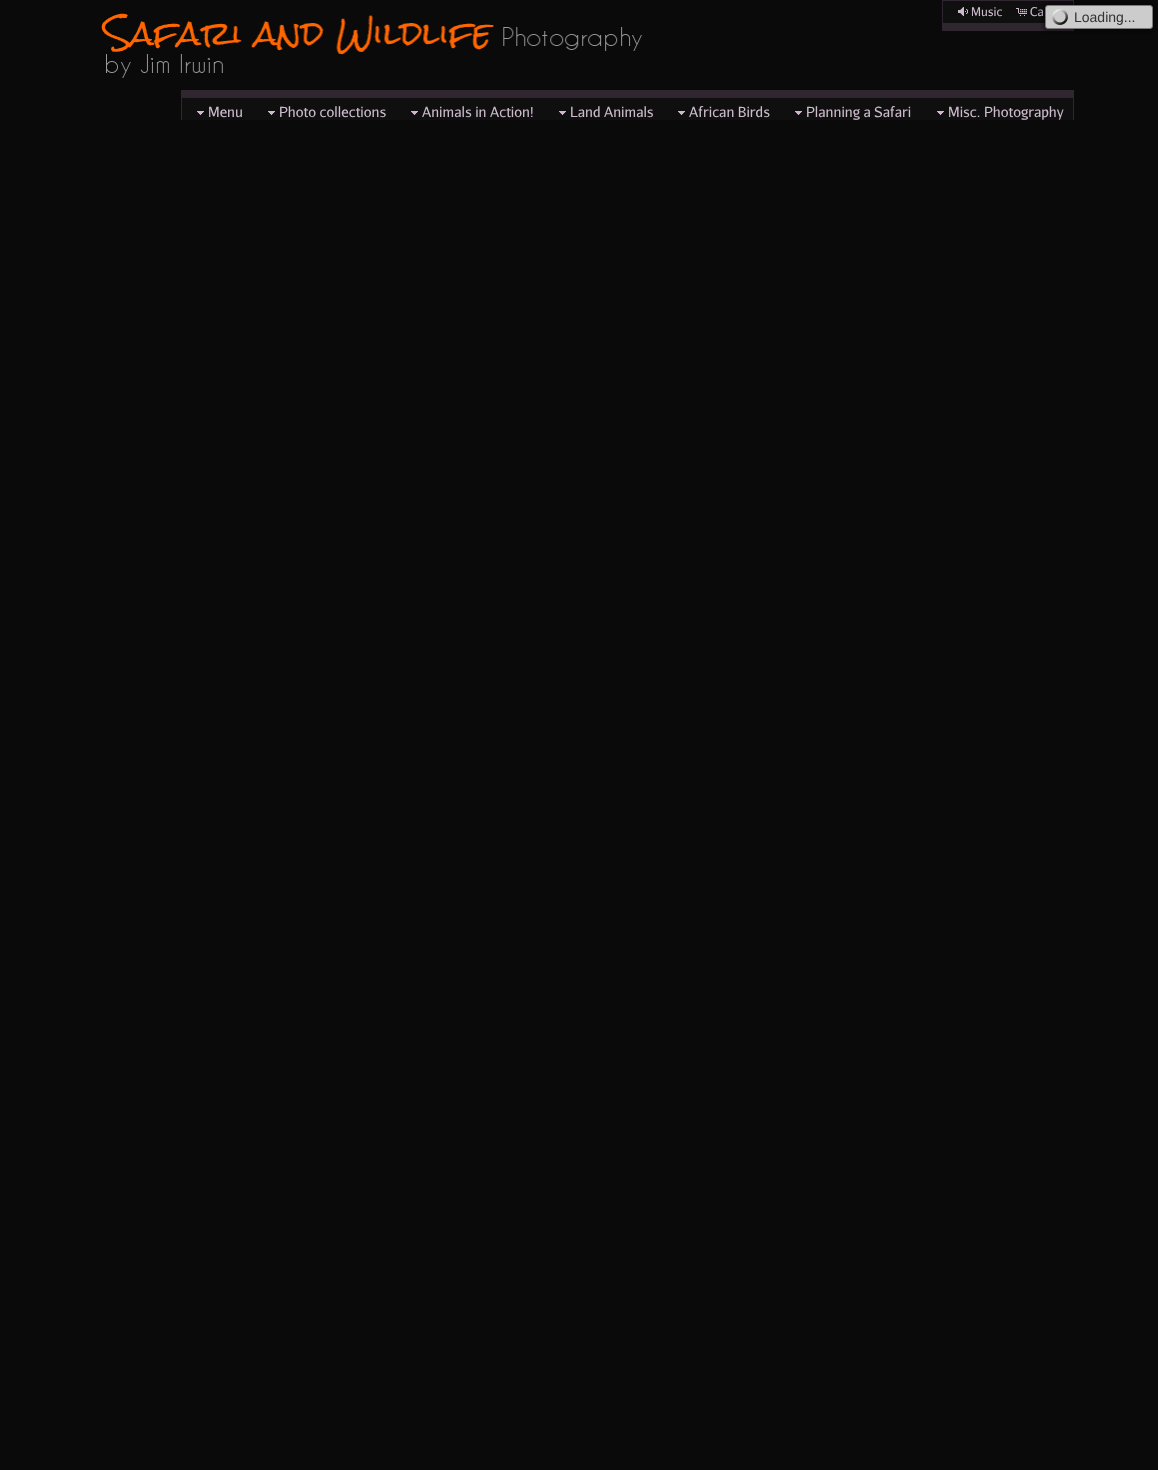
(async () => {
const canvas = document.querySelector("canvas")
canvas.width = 1158
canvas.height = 1470
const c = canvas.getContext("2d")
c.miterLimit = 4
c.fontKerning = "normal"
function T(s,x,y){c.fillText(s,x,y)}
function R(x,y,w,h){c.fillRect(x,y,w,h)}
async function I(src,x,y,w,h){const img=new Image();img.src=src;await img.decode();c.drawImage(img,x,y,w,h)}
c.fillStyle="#0a0a0a"
R(0,0,1158,1470)
c.fillStyle="#0f0f0f"
R(943,1,130,22)
c.fillStyle="#302630"
R(942,0,132,1)
R(1073,0,1,5)
R(942,23,132,8)
R(942,0,1,31)
await I("1.png",958,7,10,9)
c.font="12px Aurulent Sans"
c.fillStyle="#cbc"
T("Music",971,16)
await I("2.png",1016,8,11,8)
T("Ca",1030,16)
await I("3.png",101,13,542,65)
c.fillStyle="#302630"
R(1073,90,1,30)
R(181,90,1,30)
c.fillStyle="#0f0f0f"
R(182,98,891,22)
c.fillStyle="#302630"
R(182,90,891,8)
await I("4.png",197,111,7,4)
c.font="14px Aurulent Sans"
c.fillStyle="#cbc"
T("Menu",208,117)
await I("4.png",268,111,7,4)
T("Photo collections",279,117)
await I("4.png",411,111,7,4)
T("Animals in Action!",422,117)
await I("4.png",559,111,7,4)
T("Land Animals",570,117)
await I("4.png",678,111,7,4)
T("African Birds",689,117)
await I("4.png",795,111,7,4)
T("Planning a Safari",806,117)
await I("4.png",937,111,7,4)
T("Misc. Photography",948,117)
c.fillStyle="#0000004d"
c.filter="blur(1.5px)"
c.beginPath()
c.roundRect(1042,2,114,30,6)
c.fill()
c.filter="none"
c.fillStyle="#ccc"
c.beginPath()
c.roundRect(1045.5,5.5,107,23,2.5)
c.fill()
c.strokeStyle="#7a7a7a"
c.stroke()
await I("5.png",1052,9,16,16)
c.font="14px Liberation Sans"
c.fillStyle="#333"
T("Loading...",1074,22)
})()
